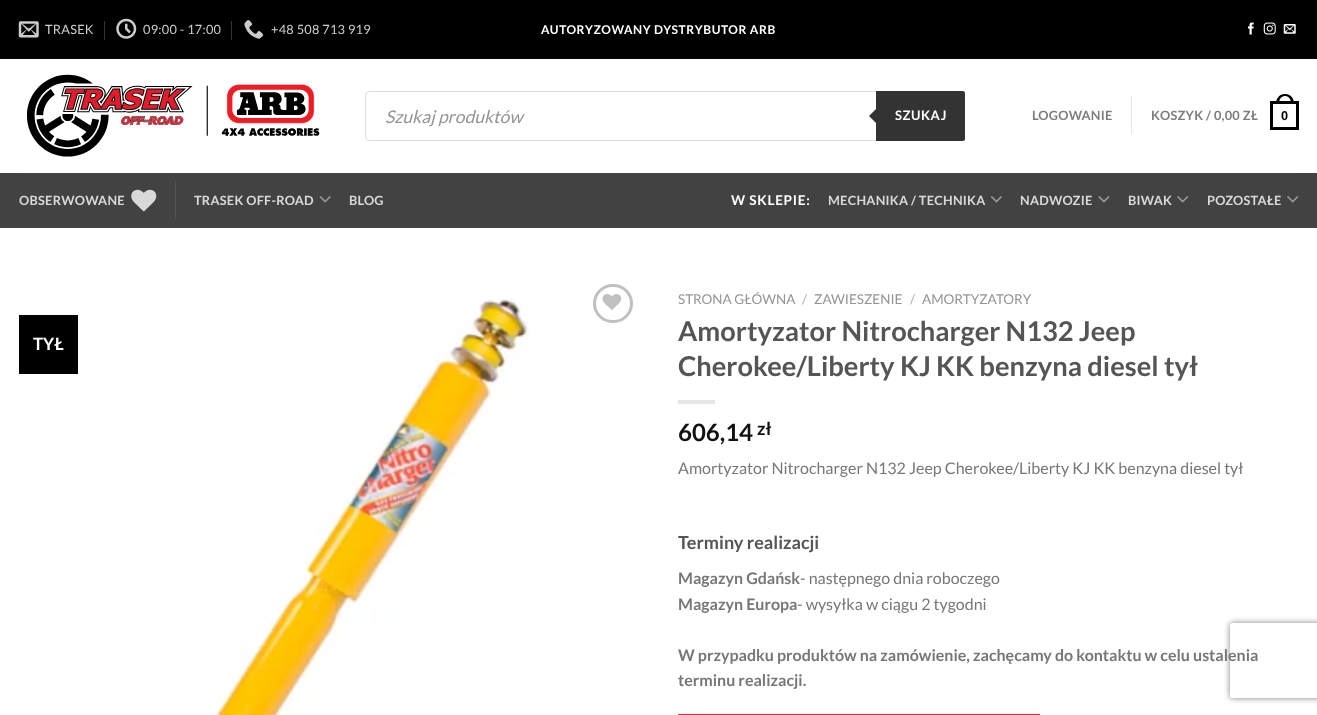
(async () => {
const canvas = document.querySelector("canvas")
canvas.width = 1317
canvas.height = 715
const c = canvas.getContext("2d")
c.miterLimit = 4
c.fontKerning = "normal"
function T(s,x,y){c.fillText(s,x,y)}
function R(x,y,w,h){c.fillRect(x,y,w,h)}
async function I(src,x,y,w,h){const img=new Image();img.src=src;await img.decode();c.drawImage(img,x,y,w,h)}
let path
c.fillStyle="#fff"
R(0,0,1317,715)
c.fillStyle="#000"
R(0,0,1317,59)
await I("1.png",18,21,21,17)
c.letterSpacing="0.25px"
c.font="12.75px Lato"
c.fillStyle="#ccc"
T("TRASEK",45,34)
c.fillStyle="#333"
R(104,21,1,19)
await I("2.png",116,18,21,21)
c.fillStyle="#ccc"
T("09:00 - 17:00",143,34)
c.fillStyle="#333"
R(231,21,1,19)
await I("3.png",244,20,20,19)
c.fillStyle="#ccc"
T("+48 508 713 919",271,34)
c.letterSpacing="0.6px"
c.font="bold 12px Lato"
c.fillStyle="#fff"
T("AUTORYZOWANY DYSTRYBUTOR ARB",541,34)
await I("4.png",1248,22,6,13)
await I("5.png",1263,22,13,13)
await I("6.png",1283,24,13,10)
await I("7.png",26,74,294,83)
c.beginPath()
c.roundRect(365.5,91.5,599,49,3.5)
c.strokeStyle="#ddd"
c.stroke()
c.letterSpacing="0px"
c.font="italic 17.5px Lato"
c.fillStyle="#949494"
T("Szukaj produktów",385,123)
c.fillStyle="#333"
c.beginPath()
c.roundRect(876,91,89,50,[0,2.5,2.5,0])
c.fill()
path = new Path2D("M879 106v20l-10-10z")
c.fill(path)
c.letterSpacing="0.5px"
c.font="bold 13px Lato"
c.fillStyle="#fff"
T("SZUKAJ",895,120)
c.letterSpacing="0.25px"
c.font="bold 12.75px Lato"
c.fillStyle="#7d7d7d"
T("LOGOWANIE",1032,120)
c.fillStyle="#e6e6e6"
R(1131,96,1,38)
c.fillStyle="#7d7d7d"
T("KOSZYK / 0,00 ZŁ",1151,120)
c.strokeStyle="#000"
c.lineWidth=3
c.strokeRect(1271.5,102.5,26,26)
c.fillStyle="#000"
path = new Path2D("M1285 94c6 0 9 4.5 9 10h-18c0-5.5 3-10 9-10zm0 2c4.5 0 6 4 6 8h-12c0-4 1.5-8 6-8z")
c.fill(path,"evenodd")
c.font="bold 12.75px Liberation Sans"
T("0",1281,120)
c.fillStyle="#424242"
R(0,173,1317,55)
c.fillStyle="#474747"
R(19,173,1280,1)
c.font="bold 12.75px Lato"
c.fillStyle="#d9d9d9"
T("OBSERWOWANE",19,205)
await I("8.png",131,189,26,23)
c.fillStyle="#555"
R(175,181,1,38)
c.fillStyle="#d9d9d9"
T("TRASEK OFF-ROAD",194,205)
await I("9.png",319,196,12,7)
T("BLOG",349,205)
c.letterSpacing="0.75px"
c.font="bold 13.5px Lato"
c.fillStyle="#fff"
T("W SKLEPIE:",731,205)
c.letterSpacing="0.25px"
c.font="bold 12.75px Lato"
c.fillStyle="#d9d9d9"
T("MECHANIKA / TECHNIKA",828,205)
await I("10.png",991,196,11,7)
T("NADWOZIE",1020,205)
await I("11.png",1098,196,12,7)
T("BIWAK",1128,205)
await I("12.png",1177,196,12,7)
T("POZOSTAŁE",1207,205)
await I("12.png",1287,196,12,7)
c.fillStyle="#000"
R(19,315,59,59)
c.letterSpacing="0px"
c.font="bold 17px Lato"
c.fillStyle="#fff"
T("TYŁ",33,350)
await I("13.png",215,298,314,417)
c.beginPath()
c.roundRect(594.5,285.5,37,36,18)
c.strokeStyle="#c0c0c0"
c.stroke()
await I("14.png",602,294,20,16)
c.font="13.5px Lato"
c.fillStyle="#949494"
T("STRONA GŁÓWNA",678,304)
c.fillStyle="#b2b2b2"
T("/",802,304)
c.fillStyle="#949494"
T("ZAWIESZENIE",814,304)
c.fillStyle="#b2b2b2"
T("/",910,304)
c.fillStyle="#949494"
T("AMORTYZATORY",922,304)
c.font="bold 27.25px Lato"
c.fillStyle="#555"
T("Amortyzator Nitrocharger N132 Jeep",678,341)
T("Cherokee/Liberty KJ KK benzyna diesel tył",678,376)
c.fillStyle="#e6e6e6"
R(678,400,37,4)
c.font="bold 24px Lato"
c.fillStyle="#111"
T("606,14",678,441)
c.font="bold 18px Lato"
T("zł",757,435)
c.font="16px Lato"
c.fillStyle="#777"
T("Amortyzator Nitrocharger N132 Jeep Cherokee/Liberty KJ KK benzyna diesel tył",678,474)
c.font="bold 18px Lato"
c.fillStyle="#555"
T("Terminy realizacji",678,549)
c.font="bold 16px Lato"
c.fillStyle="#777"
T("Magazyn Gdańsk",678,584)
c.font="16px Lato"
T("- następnego dnia roboczego",800,584)
c.font="bold 16px Lato"
T("Magazyn Europa",678,610)
c.font="16px Lato"
T("- wysyłka w ciągu 2 tygodni",797,610)
c.font="bold 16px Lato"
T("W przypadku produktów na zamówienie, zachęcamy do kontaktu w celu ustalenia",678,661)
T("terminu realizacji.",678,686)
c.strokeStyle="#d33"
c.lineWidth=1
c.strokeRect(678.5,714.5,361,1)
c.save()
path = new Path2D("M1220 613h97v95h-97zm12.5 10h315c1.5 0 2.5 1 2.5 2.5v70c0 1.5-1 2.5-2.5 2.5h-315c-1.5 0-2.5-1-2.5-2.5v-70c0-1.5 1-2.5 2.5-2.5z")
c.clip(path,"evenodd")
c.fillStyle="#808080"
c.filter="blur(3px)"
c.beginPath()
c.roundRect(1230,623,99,75,2.5)
c.fill()
c.filter="none"
c.restore()
})()
